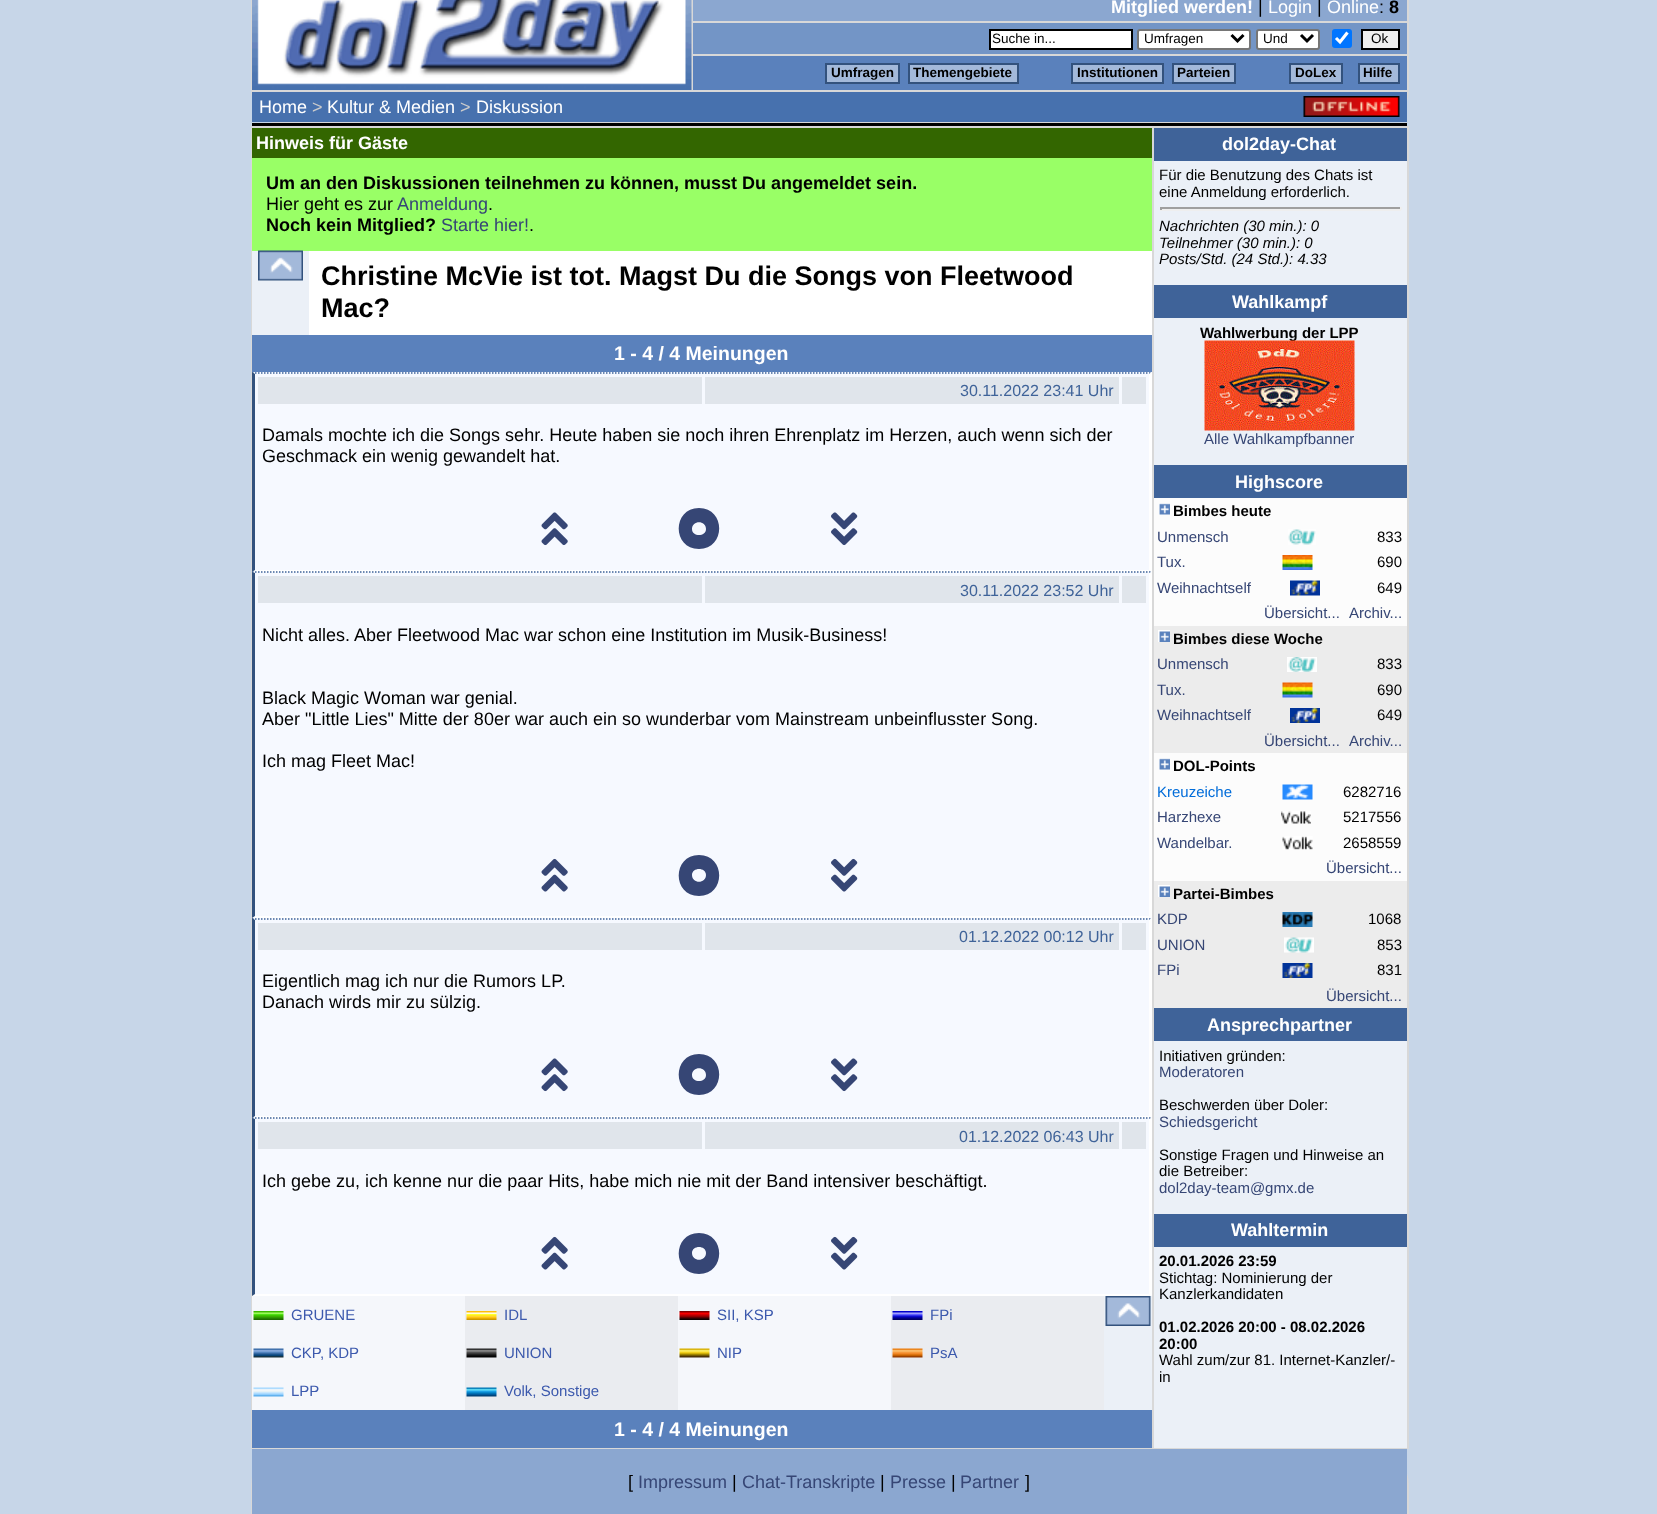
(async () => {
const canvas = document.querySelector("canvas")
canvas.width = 1657
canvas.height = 1514
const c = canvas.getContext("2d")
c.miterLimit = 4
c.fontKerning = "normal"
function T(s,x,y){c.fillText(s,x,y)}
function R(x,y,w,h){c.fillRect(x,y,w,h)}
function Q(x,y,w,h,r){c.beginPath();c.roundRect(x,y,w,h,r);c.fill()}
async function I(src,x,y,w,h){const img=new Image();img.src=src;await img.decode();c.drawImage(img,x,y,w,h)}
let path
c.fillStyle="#c7d6e8"
R(0,0,1657,1514)
c.fillStyle="#d8d8d8"
Q(251,-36,1158,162,36)
await I("1.png",252,0,440,90)
c.fillStyle="#8ba7d0"
R(693,0,714,21)
c.font="bold 18px Liberation Sans"
c.fillStyle="#fff"
T("Mitglied werden!",1111,13)
c.font="18px Liberation Sans"
c.fillStyle="#000"
T("|",1258,13)
c.fillStyle="#fff"
T("Login",1268,13)
c.fillStyle="#000"
T("|",1317,13)
c.fillStyle="#fff"
T("Online",1327,13)
c.fillStyle="#000"
T(":",1379,13)
c.font="bold 18px Liberation Sans"
T("8",1389,13)
c.fillStyle="#7395c6"
R(693,23,714,31)
c.fillStyle="#fff"
c.beginPath()
c.rect(990,30,142,19)
c.fill()
c.strokeStyle="#000"
c.lineWidth=2
c.stroke()
c.font="13.5px Liberation Sans"
c.fillStyle="#000"
T("Suche in...",992,43)
c.fillStyle="#fff"
c.beginPath()
c.roundRect(1138,30,112,19,2)
c.fill()
c.strokeStyle="#767676"
c.stroke()
path = new Path2D("M1231.5 35l6 6l6-6")
c.strokeStyle="#000"
c.lineWidth=3
c.stroke(path)
c.fillStyle="#000"
T("Umfragen",1144,43)
c.fillStyle="#fff"
c.beginPath()
c.roundRect(1257,30,62,19,2)
c.fill()
c.strokeStyle="#767676"
c.lineWidth=2
c.stroke()
path = new Path2D("M1301 35l6 6l6-6")
c.strokeStyle="#000"
c.lineWidth=3
c.stroke(path)
c.fillStyle="#000"
T("Und",1263,43)
c.fillStyle="#0075ff"
Q(1332,29,20,19,3)
path = new Path2D("M1336 38l4 4l7.5-9.5")
c.strokeStyle="#fff"
c.lineWidth=3.1
c.stroke(path)
c.fillStyle="#efefef"
c.beginPath()
c.rect(1362,30,37,19)
c.fill()
c.strokeStyle="#000"
c.lineWidth=2
c.stroke()
c.fillStyle="#000"
T("Ok",1371,43)
c.fillStyle="#5a81bc"
R(693,56,714,34)
c.fillStyle="#a3b9da"
c.beginPath()
c.rect(826,64,73,19)
c.fill()
c.strokeStyle="#33527d"
c.stroke()
c.font="bold 13.5px Liberation Sans"
c.fillStyle="#000"
T("Umfragen",831,77)
c.fillStyle="#a3b9da"
c.beginPath()
c.rect(909,64,109,19)
c.fill()
c.stroke()
c.fillStyle="#000"
T("Themengebiete",913,77)
c.fillStyle="#a3b9da"
c.beginPath()
c.rect(1072,64,91,19)
c.fill()
c.stroke()
c.fillStyle="#000"
T("Institutionen",1077,77)
c.fillStyle="#a3b9da"
c.beginPath()
c.rect(1173,64,62,19)
c.fill()
c.stroke()
c.fillStyle="#000"
T("Parteien",1177,77)
c.fillStyle="#a3b9da"
c.beginPath()
c.rect(1290,64,52,19)
c.fill()
c.stroke()
c.fillStyle="#000"
T("DoLex",1295,77)
c.fillStyle="#a3b9da"
c.beginPath()
c.rect(1359,64,40,19)
c.fill()
c.stroke()
c.fillStyle="#000"
T("Hilfe",1363,77)
c.fillStyle="#4771ae"
R(252,92,1155,30)
c.font="18px Liberation Sans"
c.fillStyle="#fff"
T("Home",259,113)
c.fillStyle="#ccc"
T(">",312,113)
c.fillStyle="#fff"
T("Kultur & Medien",327,113)
c.fillStyle="#ccc"
T(">",460,113)
c.fillStyle="#fff"
T("Diskussion",476,113)
await I("2.png",1303,96,97,21)
c.fillStyle="#000"
R(252,123,1155,3)
c.fillStyle="#d8d8d8"
R(251,126,1158,1323)
c.fillStyle="#fff"
R(309,251,843,84)
c.fillStyle="#360"
R(252,128,900,30)
c.font="bold 18px Liberation Sans"
c.fillStyle="#fff"
T("Hinweis für Gäste",256,149)
c.fillStyle="#9f6"
R(252,158,900,93)
c.fillStyle="#000"
T("Um an den Diskussionen teilnehmen zu können, musst Du angemeldet sein.",266,189)
c.font="18px Liberation Sans"
T("Hier geht es zur",266,210)
c.fillStyle="#364675"
T("Anmeldung",397,210)
c.fillStyle="#000"
T(".",488,210)
c.font="bold 18px Liberation Sans"
T("Noch kein Mitglied?",266,231)
c.font="18px Liberation Sans"
c.fillStyle="#364675"
T("Starte hier!",441,231)
c.fillStyle="#000"
T(".",529,231)
c.fillStyle="#ebf0f7"
R(252,251,57,84)
await I("3.png",258,250,45,31)
c.font="bold 27px Liberation Sans"
c.fillStyle="#000"
T("Christine McVie ist tot. Magst Du die Songs von Fleetwood",321,285)
T("Mac?",321,317)
c.fillStyle="#5a81bc"
R(252,335,900,37)
c.font="bold 19.5px Liberation Sans"
c.fillStyle="#fff"
T("1 - 4 / 4 Meinungen",614,360)
c.fillStyle="#f6f9ff"
R(252,372,900,924)
path = new Path2D("M252 373h900")
c.strokeStyle="#3f6399"
c.lineWidth=1.5
c.setLineDash([1.5,1.5])
c.stroke(path)
c.fillStyle="#fff"
path = new Path2D("M1152 372v200l-3-2v-196z")
c.fill(path)
path = new Path2D("M1152 572h-900l3-2h894z")
c.fill(path)
c.fillStyle="#33527d"
path = new Path2D("M252 572v-200l3 2v196z")
c.fill(path)
c.fillStyle="#e0e5eb"
R(258,377,444,27)
R(705,377,414,27)
c.font="16px Liberation Sans"
c.fillStyle="#3f6399"
T("30.11.2022 23:41 Uhr",960,396)
c.fillStyle="#e0e5eb"
R(1122,377,24,27)
c.font="18px Liberation Sans"
c.fillStyle="#000"
T("Damals mochte ich die Songs sehr. Heute haben sie noch ihren Ehrenplatz im Herzen, auch wenn sich der",262,441)
T("Geschmack ein wenig gewandelt hat.",262,462)
await I("4.png",541,512,27,34)
c.fillStyle="#364675"
path = new Path2D("M699 508c-27 0-27 41 0 41c27 0 27-41 0-41zm7 21c0 8-14 8-14 0c0-9 14-9 14 0z")
c.fill(path)
await I("5.png",831,512,27,34)
path = new Path2D("M252 572h900")
c.stroke(path)
c.fillStyle="#fff"
path = new Path2D("M1152 572v346l-3-2v-343z")
c.fill(path)
path = new Path2D("M1152 918h-900l3-2h894z")
c.fill(path)
c.fillStyle="#33527d"
path = new Path2D("M252 918v-346l3 1v343z")
c.fill(path)
c.fillStyle="#e0e5eb"
R(258,576,444,27)
R(705,576,414,27)
c.font="16px Liberation Sans"
c.fillStyle="#3f6399"
T("30.11.2022 23:52 Uhr",960,596)
c.fillStyle="#e0e5eb"
R(1122,576,24,27)
c.font="18px Liberation Sans"
c.fillStyle="#000"
T("Nicht alles. Aber Fleetwood Mac war schon eine Institution im Musik-Business!",262,641)
T("Black Magic Woman war genial.",262,704)
T("Aber \"Little Lies\" Mitte der 80er war auch ein so wunderbar vom Mainstream unbeinflusster Song.",262,725)
T("Ich mag Fleet Mac!",262,767)
await I("6.png",541,858,27,34)
c.fillStyle="#364675"
path = new Path2D("M699 855c-27 0-27 41 0 41c27 0 27-41 0-41zm7 20c0 9-14 9-14 0c0-8 14-8 14 0z")
c.fill(path)
await I("7.png",831,858,27,34)
path = new Path2D("M252 919h900")
c.stroke(path)
c.fillStyle="#fff"
path = new Path2D("M1152 918v200l-3-2v-196z")
c.fill(path)
path = new Path2D("M1152 1118h-900l3-2h894z")
c.fill(path)
c.fillStyle="#33527d"
path = new Path2D("M252 1118v-200l3 2v196z")
c.fill(path)
c.fillStyle="#e0e5eb"
R(258,923,444,27)
R(705,923,414,27)
c.font="16px Liberation Sans"
c.fillStyle="#3f6399"
T("01.12.2022 00:12 Uhr",959,942)
c.fillStyle="#e0e5eb"
R(1122,923,24,27)
c.font="18px Liberation Sans"
c.fillStyle="#000"
T("Eigentlich mag ich nur die Rumors LP.",262,987)
T("Danach wirds mir zu sülzig.",262,1008)
await I("4.png",541,1058,27,34)
c.fillStyle="#364675"
path = new Path2D("M699 1054c-27 0-27 41 0 41c27 0 27-41 0-41zm7 21c0 8-14 8-14 0c0-9 14-9 14 0z")
c.fill(path)
await I("5.png",831,1058,27,34)
path = new Path2D("M252 1118h900")
c.stroke(path)
c.fillStyle="#fff"
path = new Path2D("M1152 1118v178l-3-2v-175z")
c.fill(path)
path = new Path2D("M1152 1296h-900l3-2h894z")
c.fill(path)
c.fillStyle="#33527d"
path = new Path2D("M252 1296v-178l3 1v175z")
c.fill(path)
c.fillStyle="#e0e5eb"
R(258,1122,444,27)
R(705,1122,414,27)
c.font="16px Liberation Sans"
c.fillStyle="#3f6399"
T("01.12.2022 06:43 Uhr",959,1142)
c.fillStyle="#e0e5eb"
R(1122,1122,24,27)
c.font="18px Liberation Sans"
c.fillStyle="#000"
T("Ich gebe zu, ich kenne nur die paar Hits, habe mich nie mit der Band intensiver beschäftigt.",262,1187)
await I("6.png",541,1236,27,34)
c.fillStyle="#364675"
path = new Path2D("M699 1233c-27 0-27 41 0 41c27 0 27-41 0-41zm7 20c0 9-14 9-14 0c0-8 14-8 14 0z")
c.fill(path)
await I("7.png",831,1236,27,34)
c.fillStyle="#ebf0f7"
R(1104,1296,48,114)
c.fillStyle="#f5f7fb"
R(252,1296,213,114)
await I("8.png",253,1311,31,9)
c.font="15px Liberation Sans"
c.fillStyle="#3c59ad"
T("GRUENE",291,1320)
c.fillStyle="#eaecf0"
R(465,1296,213,114)
await I("9.png",466,1311,31,9)
c.fillStyle="#3c59ad"
T("IDL",504,1320)
c.fillStyle="#f5f7fb"
R(678,1296,213,114)
await I("10.png",679,1311,31,9)
c.fillStyle="#3c59ad"
T("SII, KSP",717,1320)
c.fillStyle="#eaecf0"
R(891,1296,213,114)
await I("11.png",892,1311,31,9)
c.fillStyle="#3c59ad"
T("FPi",930,1320)
await I("12.png",253,1348,31,10)
T("CKP, KDP",291,1358)
await I("13.png",466,1348,31,10)
T("UNION",504,1358)
await I("14.png",679,1348,31,10)
T("NIP",717,1358)
await I("15.png",892,1348,31,10)
T("PsA",930,1358)
await I("16.png",253,1387,31,10)
T("LPP",291,1396)
await I("17.png",466,1387,31,10)
T("Volk, Sonstige",504,1396)
await I("18.png",1105,1296,46,30)
c.fillStyle="#5a81bc"
R(252,1410,900,38)
c.font="bold 19.5px Liberation Sans"
c.fillStyle="#fff"
T("1 - 4 / 4 Meinungen",614,1436)
c.fillStyle="#ebf0f7"
R(1154,161,253,1287)
c.fillStyle="#3f6399"
R(1154,128,253,33)
c.font="bold 18px Liberation Sans"
c.fillStyle="#fff"
T("dol2day-Chat",1222,150)
c.font="15px Liberation Sans"
c.fillStyle="#000"
T("Für die Benutzung des Chats ist",1159,180)
T("eine Anmeldung erforderlich.",1159,197)
c.fillStyle="#9f9f9f"
R(1160,207,241,2)
c.fillStyle="#eee"
R(1400,207,2,3)
R(1160,209,241,2)
c.fillStyle="#9f9f9f"
R(1160,207,2,3)
c.font="italic 15px Liberation Sans"
c.fillStyle="#000"
T("Nachrichten (30 min.): 0",1159,231)
T("Teilnehmer (30 min.): 0",1159,248)
T("Posts/Std. (24 Std.): 4.33",1159,264)
c.fillStyle="#3f6399"
R(1154,285,253,33)
c.font="bold 18px Liberation Sans"
c.fillStyle="#fff"
T("Wahlkampf",1232,308)
c.font="bold 15px Liberation Sans"
c.fillStyle="#000"
T("Wahlwerbung der LPP",1200,338)
await I("19.png",1204,340,151,91)
c.font="15px Liberation Sans"
c.fillStyle="#364675"
T("Alle Wahlkampfbanner",1204,444)
c.fillStyle="#3f6399"
R(1154,465,253,33)
c.font="bold 18px Liberation Sans"
c.fillStyle="#fff"
T("Highscore",1235,488)
c.fillStyle="#fcfcfc"
R(1154,498,253,128)
await I("20.png",1159,503,11,12)
c.font="bold 15px Liberation Sans"
c.fillStyle="#000"
T("Bimbes heute",1173,516)
c.font="15px Liberation Sans"
c.fillStyle="#364675"
T("Unmensch",1157,542)
await I("21.png",1288,529,28,16)
c.fillStyle="#000"
T("833",1377,542)
c.fillStyle="#364675"
T("Tux.",1157,567)
await I("22.png",1282,555,31,15)
c.fillStyle="#000"
T("690",1377,567)
c.fillStyle="#364675"
T("Weihnachtself",1157,593)
await I("23.png",1290,580,30,16)
c.fillStyle="#000"
T("649",1377,593)
c.fillStyle="#364675"
T("Übersicht...",1264,618)
T("Archiv...",1349,618)
c.fillStyle="#ececec"
R(1154,626,253,127)
await I("24.png",1158,630,12,12)
c.font="bold 15px Liberation Sans"
c.fillStyle="#000"
T("Bimbes diese Woche",1173,644)
c.font="15px Liberation Sans"
c.fillStyle="#364675"
T("Unmensch",1157,669)
await I("25.png",1287,657,30,15)
c.fillStyle="#000"
T("833",1377,669)
c.fillStyle="#364675"
T("Tux.",1157,695)
await I("26.png",1282,682,31,16)
c.fillStyle="#000"
T("690",1377,695)
c.fillStyle="#364675"
T("Weihnachtself",1157,720)
await I("27.png",1290,708,30,15)
c.fillStyle="#000"
T("649",1377,720)
c.fillStyle="#364675"
T("Übersicht...",1264,746)
T("Archiv...",1349,746)
c.fillStyle="#fcfcfc"
R(1154,753,253,128)
await I("20.png",1159,758,11,12)
c.font="bold 15px Liberation Sans"
c.fillStyle="#000"
T("DOL-Points",1173,771)
c.font="15px Liberation Sans"
c.fillStyle="#006cd9"
T("Kreuzeiche",1157,797)
await I("28.png",1282,784,31,16)
c.fillStyle="#000"
T("6282716",1343,797)
c.fillStyle="#364675"
T("Harzhexe",1157,822)
await I("29.png",1281,811,30,13)
c.fillStyle="#000"
T("5217556",1343,822)
c.fillStyle="#364675"
T("Wandelbar.",1157,848)
await I("30.png",1282,836,31,14)
c.fillStyle="#000"
T("2658559",1343,848)
c.fillStyle="#364675"
T("Übersicht...",1326,873)
c.fillStyle="#ececec"
R(1154,881,253,127)
await I("24.png",1158,885,12,12)
c.font="bold 15px Liberation Sans"
c.fillStyle="#000"
T("Partei-Bimbes",1173,899)
c.font="15px Liberation Sans"
c.fillStyle="#364675"
T("KDP",1157,924)
await I("31.png",1282,912,31,15)
c.fillStyle="#000"
T("1068",1368,924)
c.fillStyle="#364675"
T("UNION",1157,950)
await I("32.png",1284,937,30,16)
c.fillStyle="#000"
T("853",1377,950)
c.fillStyle="#364675"
T("FPi",1157,975)
await I("33.png",1282,963,31,15)
c.fillStyle="#000"
T("831",1377,975)
c.fillStyle="#364675"
T("Übersicht...",1326,1001)
c.fillStyle="#3f6399"
R(1154,1008,253,33)
c.font="bold 18px Liberation Sans"
c.fillStyle="#fff"
T("Ansprechpartner",1207,1031)
c.font="15px Liberation Sans"
c.fillStyle="#000"
T("Initiativen gründen:",1159,1061)
c.fillStyle="#364675"
T("Moderatoren",1159,1077)
c.fillStyle="#000"
T("Beschwerden über Doler:",1159,1110)
c.fillStyle="#364675"
T("Schiedsgericht",1159,1127)
c.fillStyle="#000"
T("Sonstige Fragen und Hinweise an",1159,1160)
T("die Betreiber:",1159,1176)
c.fillStyle="#364675"
T("dol2day-team@gmx.de",1159,1193)
c.fillStyle="#3f6399"
R(1154,1214,253,33)
c.font="bold 18px Liberation Sans"
c.fillStyle="#fff"
T("Wahltermin",1231,1236)
c.font="bold 15px Liberation Sans"
c.fillStyle="#000"
T("20.01.2026 23:59",1159,1266)
c.font="15px Liberation Sans"
T("Stichtag: Nominierung der",1159,1283)
T("Kanzlerkandidaten",1159,1299)
c.font="bold 15px Liberation Sans"
T("01.02.2026 20:00 - 08.02.2026",1159,1332)
T("20:00",1159,1349)
c.font="15px Liberation Sans"
T("Wahl zum/zur 81. Internet-Kanzler/-",1159,1365)
T("in",1159,1382)
c.fillStyle="#d8d8d8"
Q(251,1449,1158,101,36)
c.fillStyle="#8ba7d0"
R(252,1449,1155,65)
c.font="18px Liberation Sans"
c.fillStyle="#000"
T("[",628,1488)
c.fillStyle="#364675"
T("Impressum",638,1488)
c.fillStyle="#000"
T("|",732,1488)
c.fillStyle="#364675"
T("Chat-Transkripte",742,1488)
c.fillStyle="#000"
T("|",880,1488)
c.fillStyle="#364675"
T("Presse",890,1488)
c.fillStyle="#000"
T("|",951,1488)
c.fillStyle="#364675"
T("Partner",960,1488)
c.fillStyle="#000"
T("]",1025,1488)
})()
